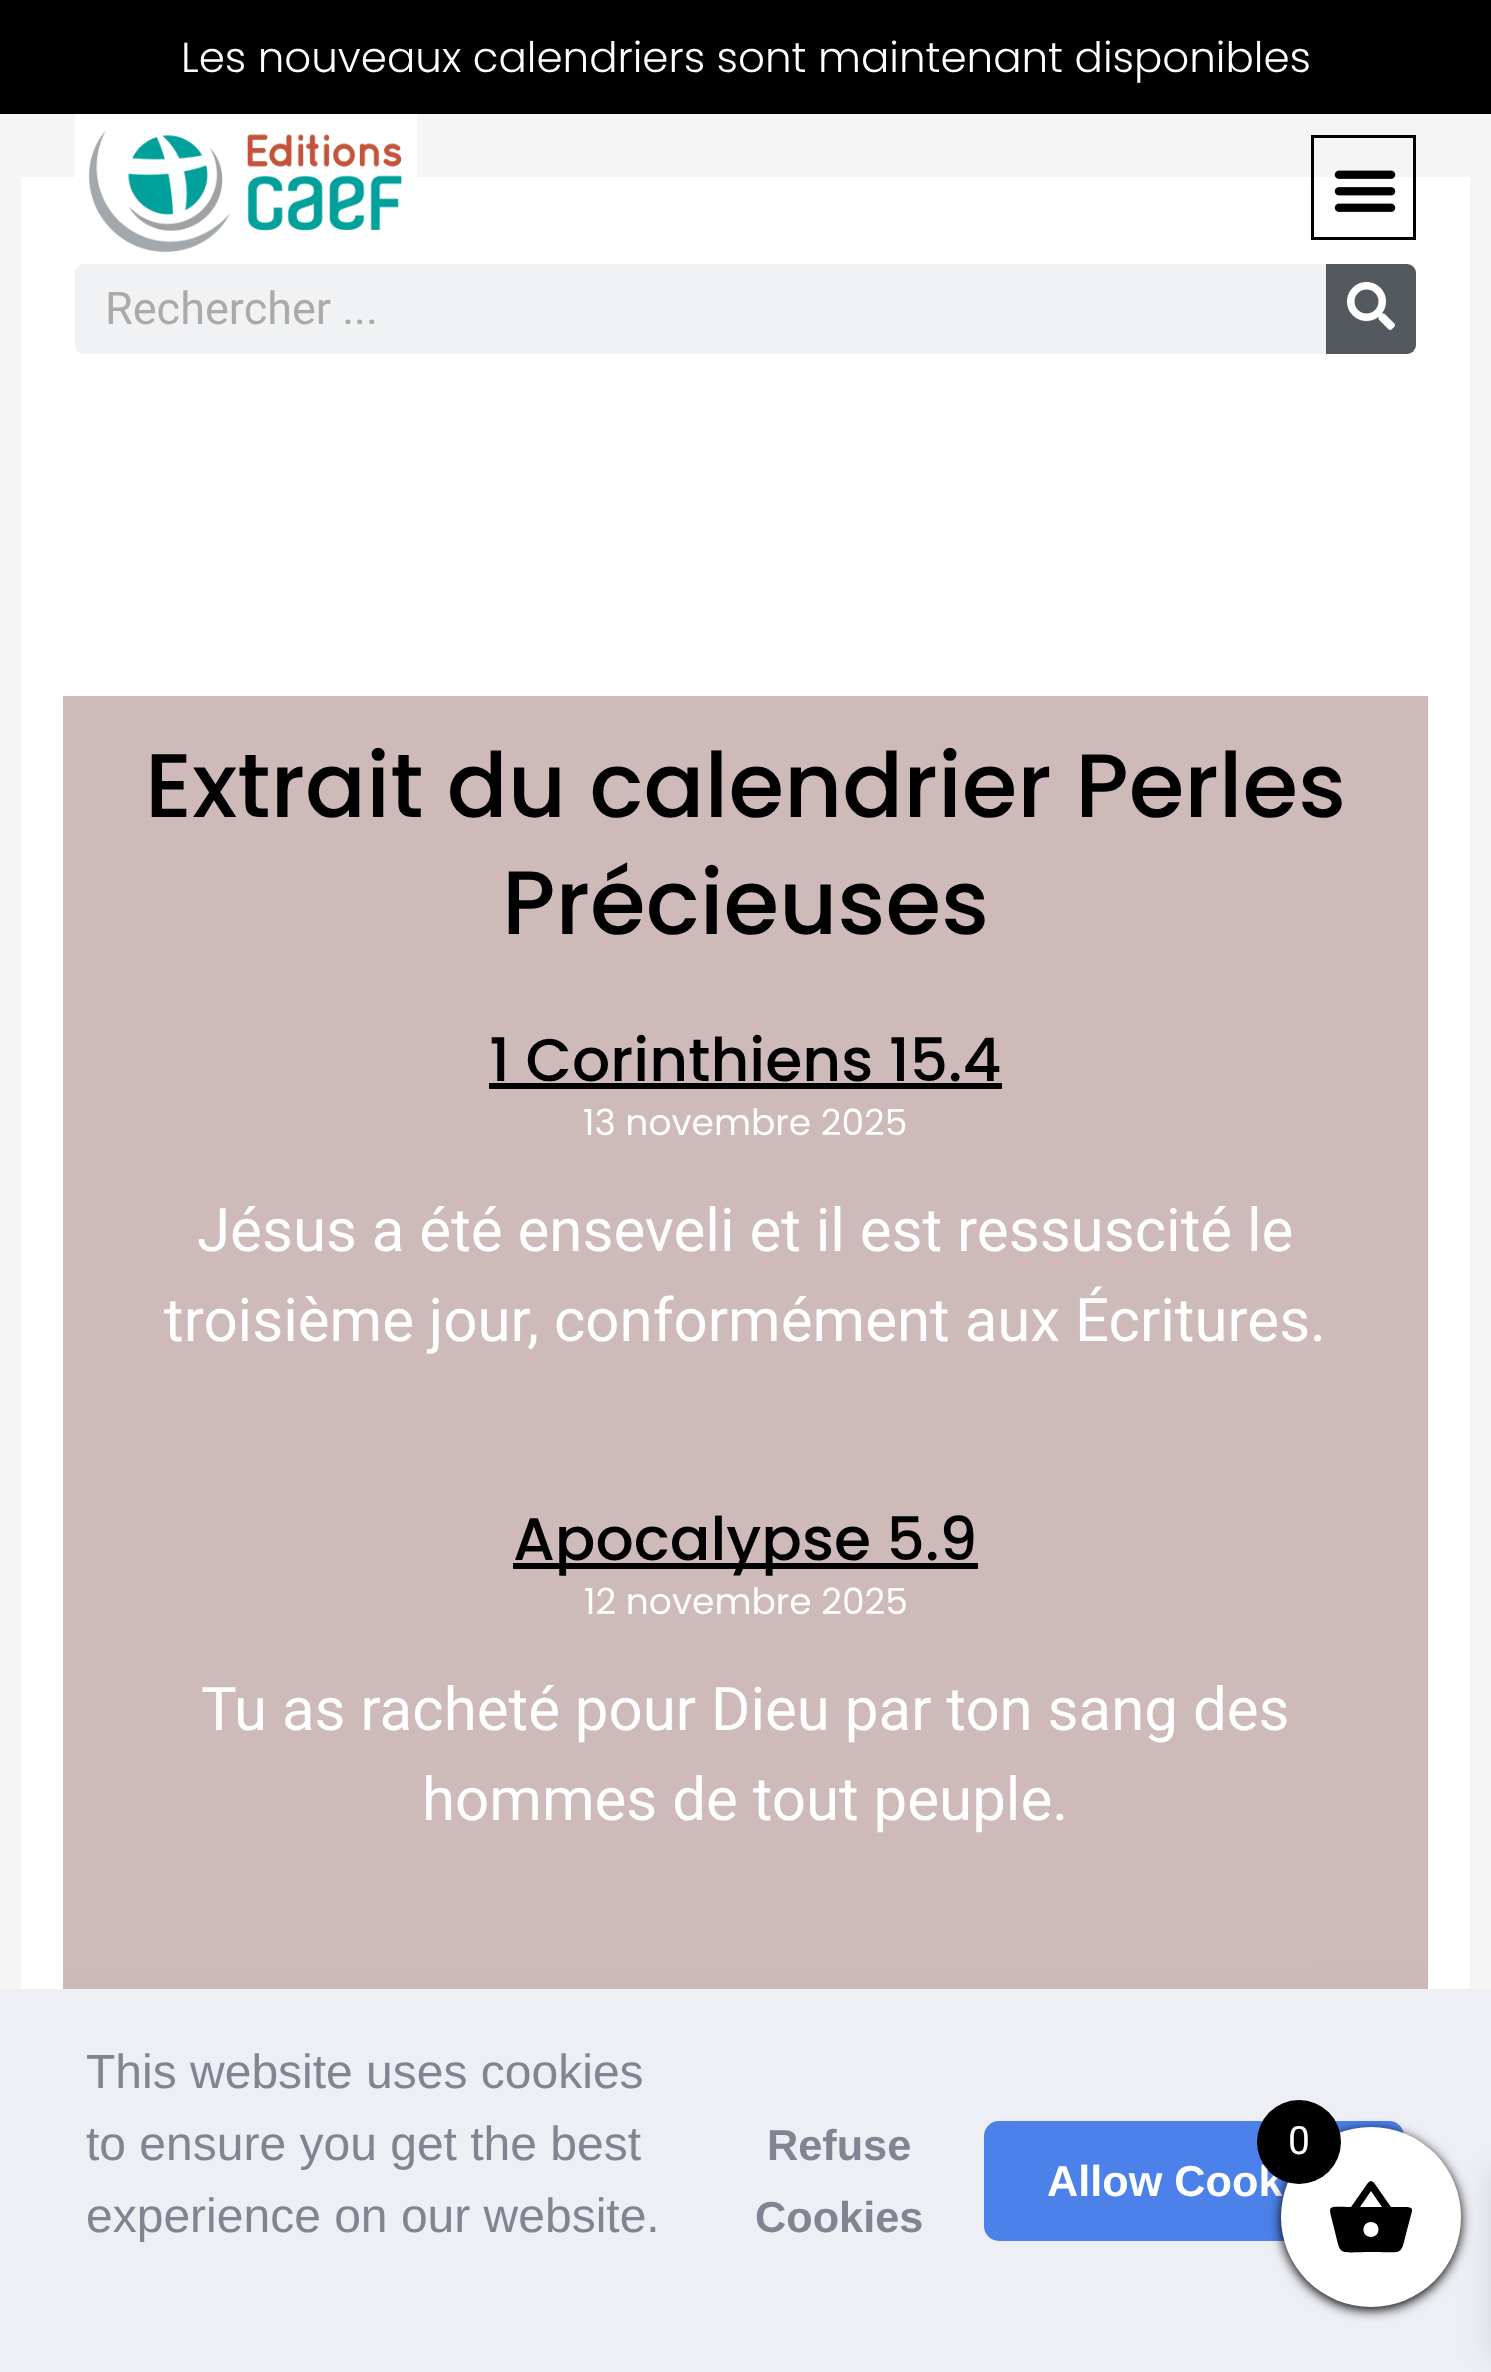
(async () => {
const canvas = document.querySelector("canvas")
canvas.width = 1491
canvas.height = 2372
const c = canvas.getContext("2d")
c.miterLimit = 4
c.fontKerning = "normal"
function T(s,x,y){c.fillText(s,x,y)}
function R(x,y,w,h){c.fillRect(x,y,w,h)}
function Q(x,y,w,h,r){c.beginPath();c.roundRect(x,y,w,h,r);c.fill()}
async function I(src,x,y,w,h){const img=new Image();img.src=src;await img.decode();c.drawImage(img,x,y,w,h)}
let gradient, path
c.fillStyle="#f5f5f5"
R(0,0,1491,2372)
c.fillStyle="#000"
R(0,0,1491,114)
c.font="300 42px Poppins"
c.fillStyle="#fff"
T("Les nouveaux calendriers sont maintenant disponibles",181,72)
R(21,177,1449,1812)
await I("1.png",75,114,342,147)
c.strokeStyle="#000"
c.lineWidth=3
c.strokeRect(1312.5,136.5,102,102)
await I("2.png",1334,170,62,42)
c.fillStyle="#f1f2f3"
Q(75,264,1341,90,9)
c.font="45px Roboto"
c.fillStyle="#aaa"
T("Rechercher ...",105,324)
c.fillStyle="#54595f"
c.beginPath()
c.roundRect(1326,264,90,90,[0,9,9,0])
c.fill()
await I("3.png",1347,282,48,48)
gradient = c.createLinearGradient(745,696,746,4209)
gradient.addColorStop(.36,"#cfbaba")
gradient.addColorStop(1,"#353535")
c.fillStyle = gradient
R(63,696,1365,1293)
c.font="500 90px Poppins"
c.fillStyle="#000"
T("Extrait du calendrier Perles",145,817)
T("Précieuses",502,934)
c.font="500 60px Poppins"
T("1 Corinthiens 15.4",489,1081)
R(489,1083,513,6)
c.font="36px Poppins"
c.fillStyle="#fff"
T("13 novembre 2025",583,1135)
c.font="60px Roboto"
T("Jésus a été enseveli et il est ressuscité le",197,1251)
T("troisième jour, conformément aux Écritures.",164,1341)
c.fillStyle="#000"
R(513,1563,465,6)
c.font="500 60px Poppins"
T("Apocalypse 5.9",513,1560)
c.font="36px Poppins"
c.fillStyle="#fff"
T("12 novembre 2025",584,1614)
c.font="60px Roboto"
T("Tu as racheté pour Dieu par ton sang des",201,1730)
T("hommes de tout peuple.",422,1820)
c.fillStyle="#edeff5"
R(0,1989,1491,383)
c.font="48px Liberation Sans"
c.fillStyle="#838391"
T("This website uses cookies",86,2088)
T("to ensure you get the best",86,2160)
T("experience on our website.",86,2232)
c.font="bold 43.25px Liberation Sans"
T("Refuse",767,2160)
T("Cookies",755,2232)
c.fillStyle="#4b81e8"
Q(984,2121,420,120,15)
c.fillStyle="#fff"
T("Allow Cook",1047,2196)
c.fillStyle="#000"
c.filter="blur(6px)"
c.beginPath()
c.roundRect(1281,2130,180,180,90)
c.fill()
c.filter="none"
c.fillStyle="#0000001a"
c.filter="blur(15px)"
c.beginPath()
c.rect(1491,2172,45,186)
c.fill()
c.filter="none"
c.fillStyle="#fff"
c.beginPath()
c.arc(1371,2217,90,0,7)
c.fill()
c.fillStyle="#000"
path = new Path2D("M1371 2237c10 0 10-15 0-15c-10 0-10 15 0 15zm-11-30h22l-11-16zm31 0h14c8 0 8 2 6 8l-4 15c-7 27-2 22-36 22c-36 0-29 6-38-28c-5-20-6-17 18-17l14-20c5-8 7-8 12 0z")
c.fill(path)
c.beginPath()
c.arc(1299,2142,42,0,7)
c.fill()
c.font="39px Roboto"
c.fillStyle="#fff"
T("0",1288,2154)
})()
